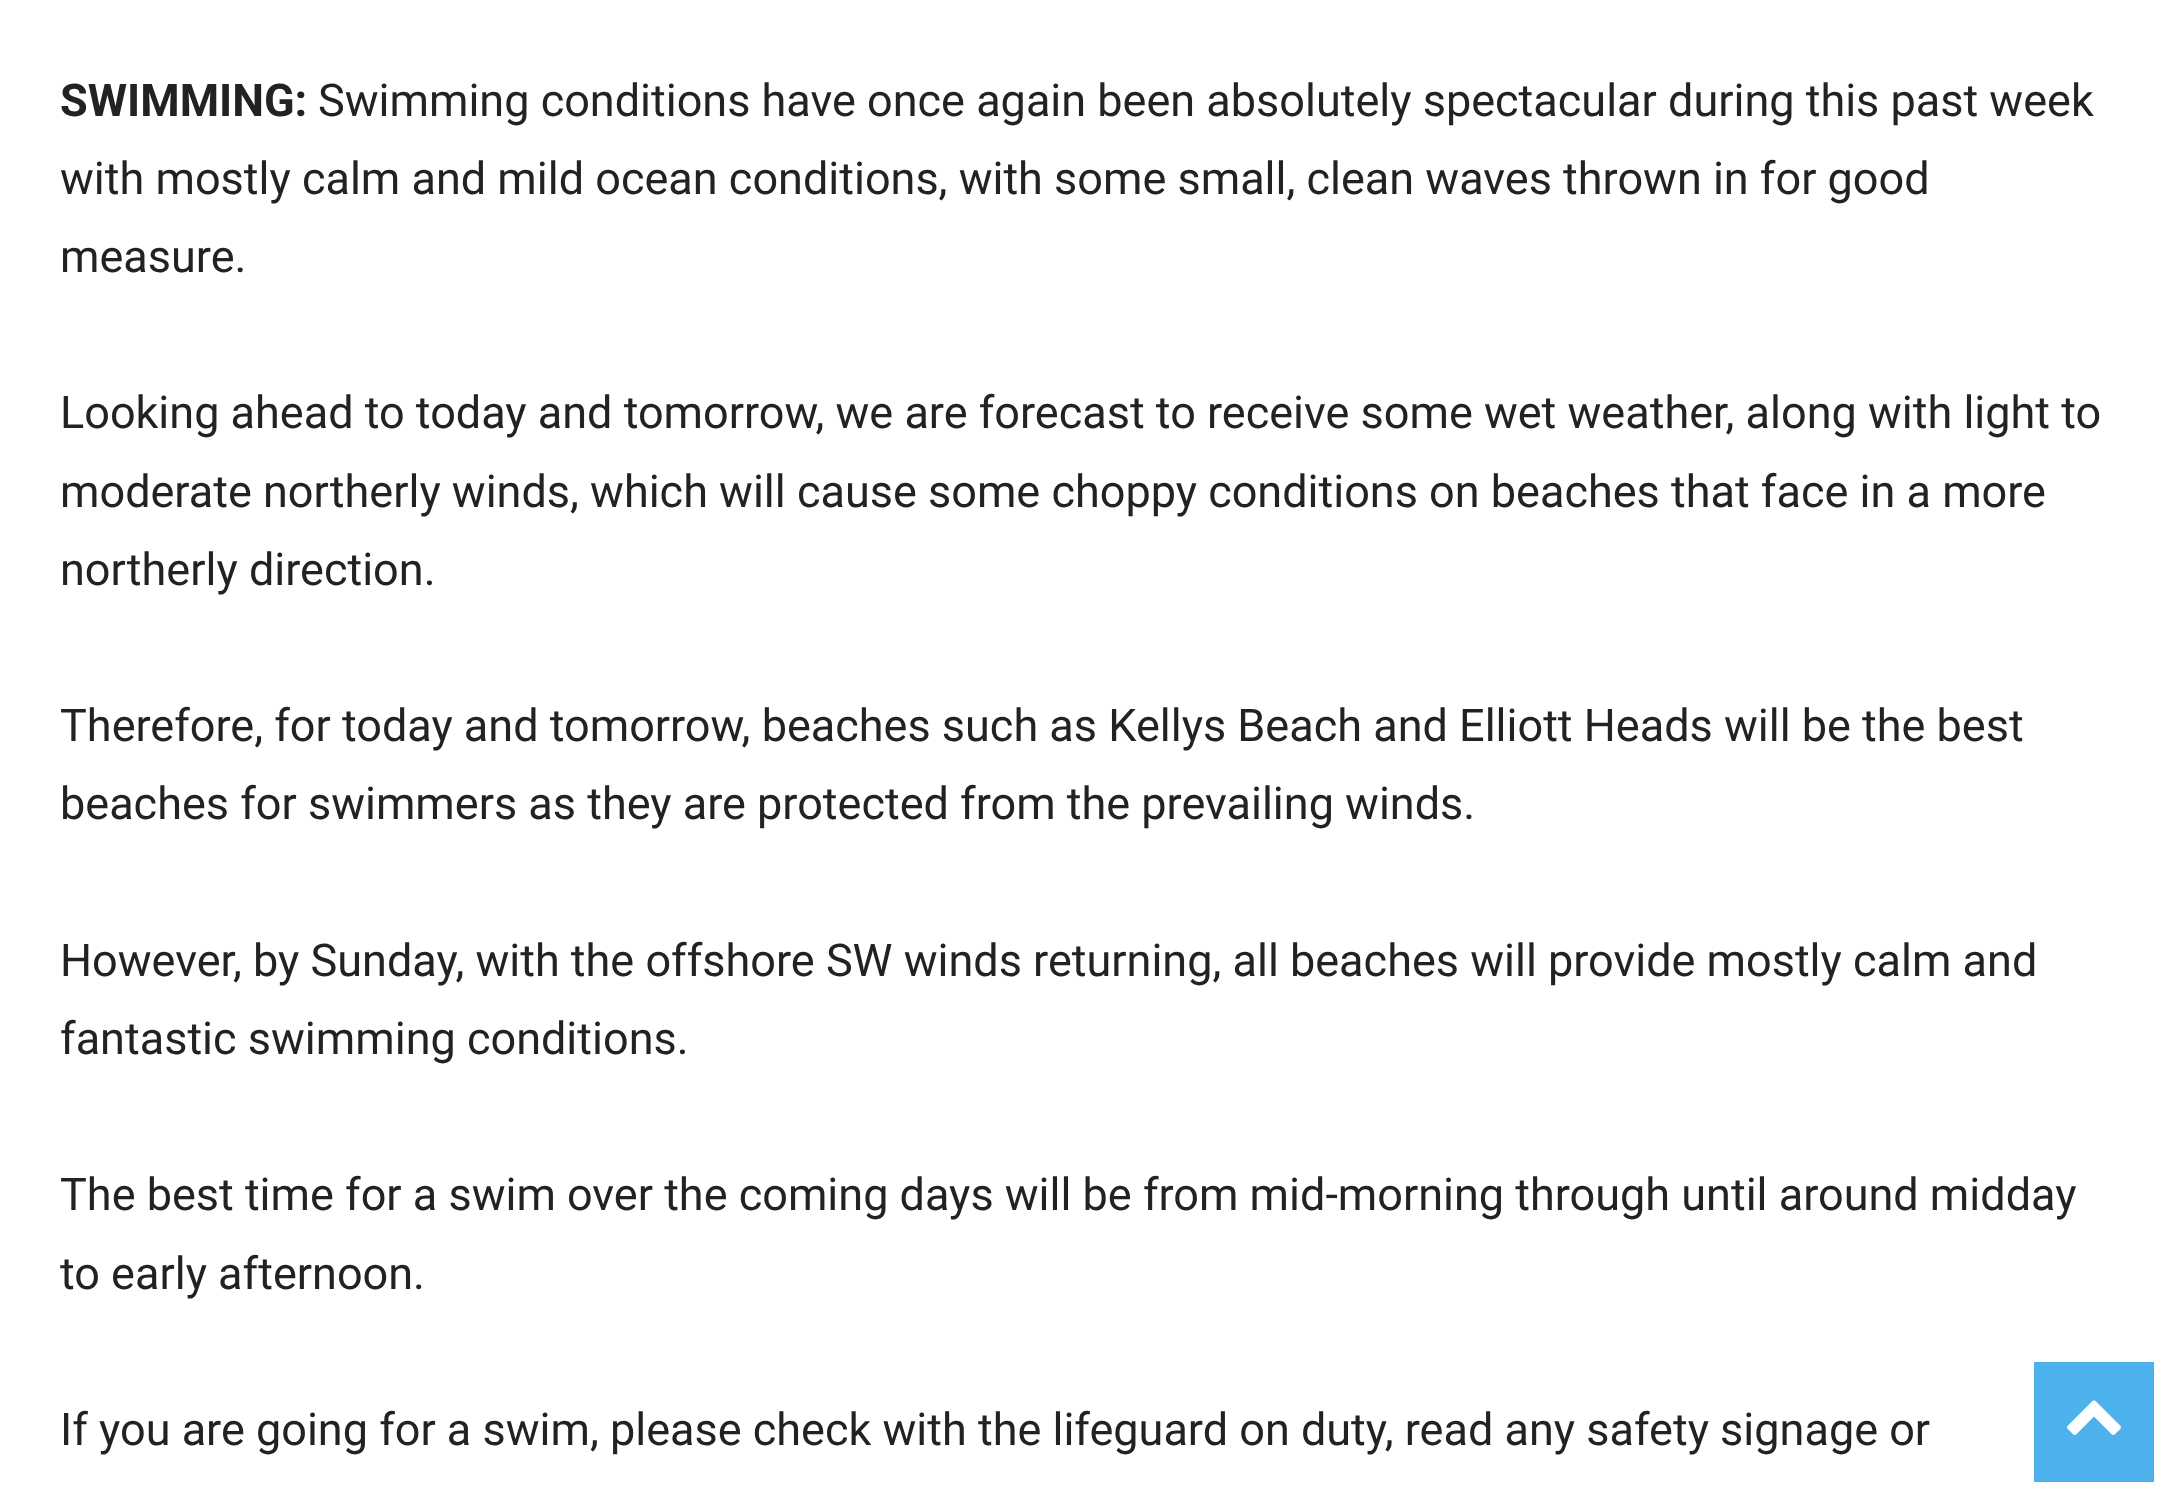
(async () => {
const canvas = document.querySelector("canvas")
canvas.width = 2167
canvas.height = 1493
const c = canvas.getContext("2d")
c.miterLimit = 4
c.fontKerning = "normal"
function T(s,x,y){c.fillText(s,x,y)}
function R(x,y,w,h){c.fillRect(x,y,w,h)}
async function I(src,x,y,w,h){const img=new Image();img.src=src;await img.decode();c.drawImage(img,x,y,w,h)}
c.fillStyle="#fff"
R(0,0,2167,1493)
c.font="bold 45px Roboto"
c.fillStyle="#222"
T("SWIMMING:",60,116)
c.font="45px Roboto"
T("Swimming conditions have once again been absolutely spectacular during this past week",318,116)
T("with mostly calm and mild ocean conditions, with some small, clean waves thrown in for good",60,194)
T("measure.",60,272)
T("Looking ahead to today and tomorrow, we are forecast to receive some wet weather, along with light to",60,428)
T("moderate northerly winds, which will cause some choppy conditions on beaches that face in a more",60,507)
T("northerly direction.",60,585)
T("Therefore, for today and tomorrow, beaches such as Kellys Beach and Elliott Heads will be the best",60,741)
T("beaches for swimmers as they are protected from the prevailing winds.",60,819)
T("However, by Sunday, with the offshore SW winds returning, all beaches will provide mostly calm and",60,976)
T("fantastic swimming conditions.",60,1054)
T("The best time for a swim over the coming days will be from mid-morning through until around midday",60,1210)
T("to early afternoon.",60,1289)
T("If you are going for a swim, please check with the lifeguard on duty, read any safety signage or",60,1445)
c.fillStyle="#4db2ec"
R(2034,1362,120,120)
await I("1.png",2067,1400,54,35)
})()
